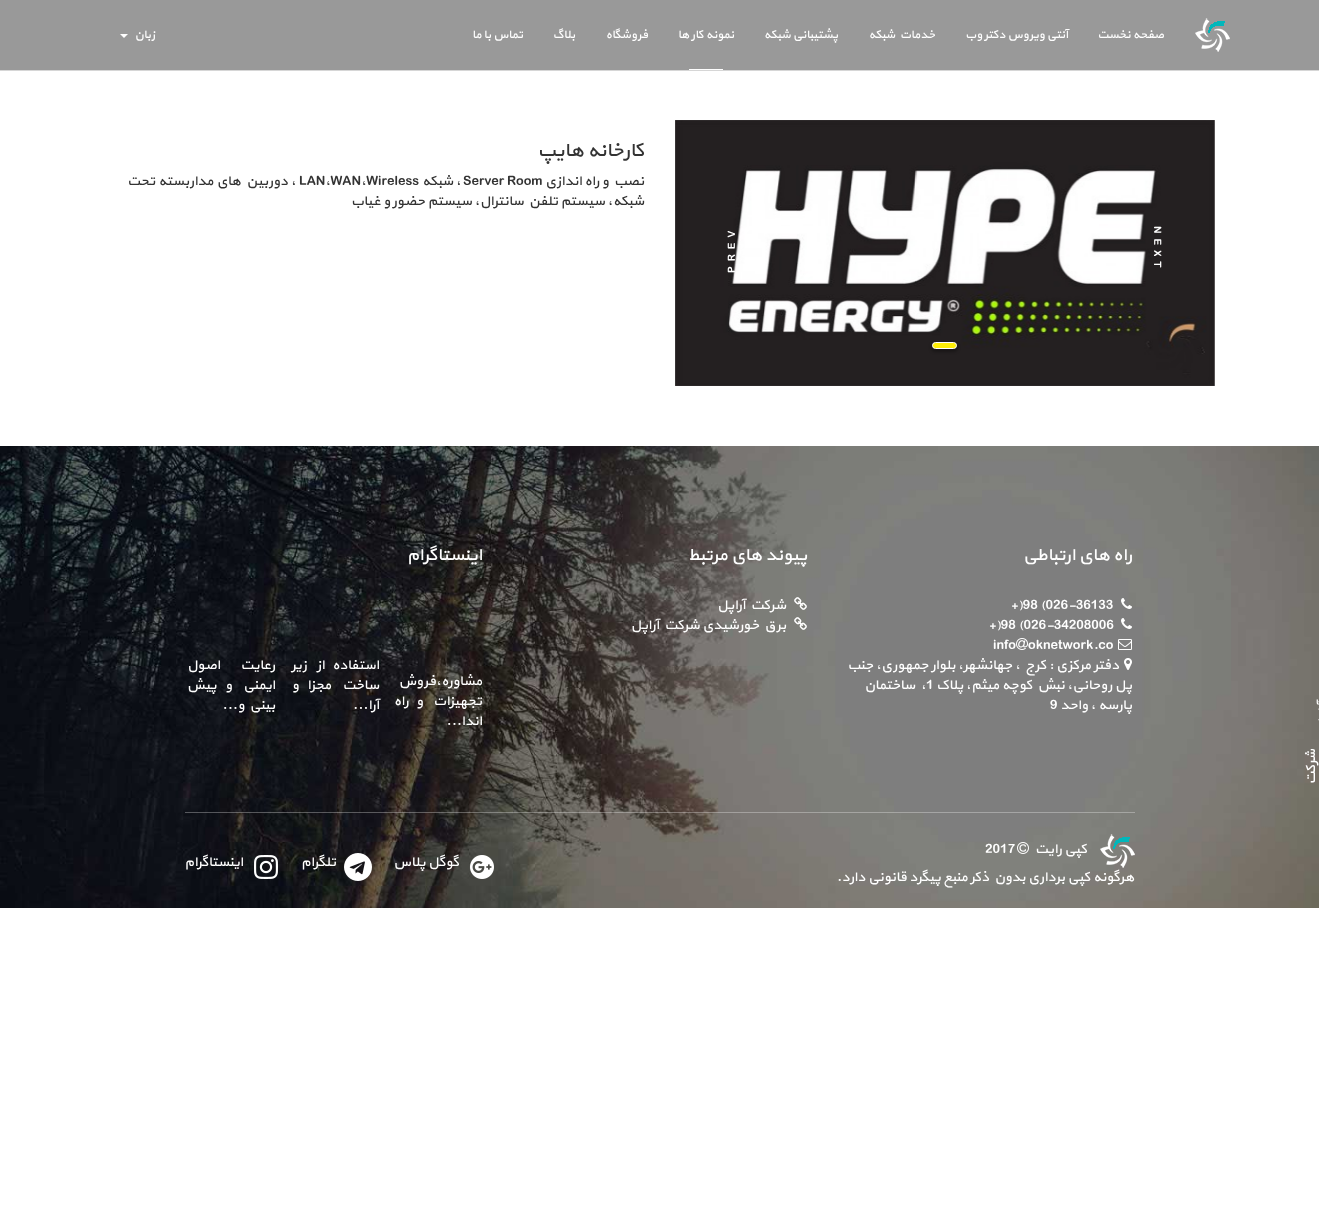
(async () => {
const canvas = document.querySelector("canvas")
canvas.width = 1319
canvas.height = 1221
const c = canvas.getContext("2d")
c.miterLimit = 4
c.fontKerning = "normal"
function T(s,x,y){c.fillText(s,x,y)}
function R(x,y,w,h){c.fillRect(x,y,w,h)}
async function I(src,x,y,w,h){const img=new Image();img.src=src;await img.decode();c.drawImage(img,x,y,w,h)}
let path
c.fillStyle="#fff"
R(0,0,1319,1221)
c.fillStyle="#999"
R(0,0,1319,70)
c.fillStyle="#d6d6d6"
R(0,70,1319,1)
await I("1.png",1195,18,35,34)
c.direction="rtl"
c.font="12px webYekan"
c.fillStyle="#fff"
T("صفحه نخست",1164,38)
T("آنتی ویروس دکتر وب",1068,38)
T("خدمات شبکه",935,38)
T("پشتیبانی شبکه",838,38)
T("نمونه کار ها",734,38)
R(689,69,34,1)
T("فروشگاه",648,38)
T("بلاگ",575,38)
T("تماس با ما",523,38)
T("زبان",155,38)
path = new Path2D("M120 34h8l-4 4z")
c.fill(path)
c.font="20px webYekan"
c.fillStyle="#333"
T("کارخانه هایپ",644,156)
c.font="14px webYekan"
T("نصب و راه اندازی",644,185)
c.direction="ltr"
T("Server Room",463,185)
c.direction="rtl"
T("، شبکه",461,185)
c.direction="ltr"
T("LAN،WAN،Wireless",299,185)
c.wordSpacing="0.5px"
c.direction="rtl"
T("، دوربین های مداربسته تحت",296,185)
c.wordSpacing="0px"
T("شبکه، سیستم تلفن سانترال، سیستم حضور و غیاب",644,205)
await I("2.png",675,120,540,266)
c.letterSpacing="5px"
c.direction="ltr"
c.font="11px webYekan"
c.fillStyle="#fff"
c.save()
c.translate(1154,226)
c.rotate(90 * Math.PI / 180)
c.fillText("NEXT",0,0)
c.restore()
c.save()
c.translate(735,273)
c.rotate(-90 * Math.PI / 180)
c.fillText("PREV",0,0)
c.restore()
c.fillStyle="#0000004d"
c.filter="blur(1.5px)"
c.beginPath()
c.roundRect(931,343,27,9,4.5)
c.fill()
c.filter="none"
c.fillStyle="#ffef06"
c.beginPath()
c.roundRect(932.5,342.5,24,6,3)
c.fill()
c.strokeStyle="#fff"
c.stroke()
await I("3.png",0,446,1319,462)
c.letterSpacing="0px"
c.direction="rtl"
c.font="14px webYekan"
c.fillStyle="#fff"
c.save()
c.translate(1327,701)
c.rotate(-90 * Math.PI / 180)
c.fillText("آراپل",0,0)
c.restore()
c.save()
c.translate(1364,711)
c.rotate(-90 * Math.PI / 180)
c.fillText("راه های ارتباطی",0,0)
c.restore()
c.save()
c.translate(1315,749)
c.rotate(-90 * Math.PI / 180)
c.fillText("شرکت",0,0)
c.restore()
c.font="18px webYekan"
T("راه های ارتباطی",1132,560)
await I("4.png",1121,598,11,11)
c.direction="ltr"
c.font="14px webYekan"
T("+)98 (026-36133",1010,609)
await I("5.png",1121,618,11,11)
T("+)98 (026-34208006",988,629)
await I("6.png",1118,639,14,11)
T("oknetwork.co",1028,649)
await I("7.png",1016,638,12,12)
T("info",993,649)
await I("8.png",1124,658,8,12)
c.wordSpacing="0.25px"
c.direction="rtl"
T("دفتر مرکزی : کرج ، جهانشهر، بلوار جمهوری، جنب",1119,669)
c.wordSpacing="0px"
T("پل روحانی، نبش کوچه میثم، پلاک",1132,689)
c.direction="ltr"
T("1",926,689)
c.wordSpacing="3px"
c.direction="rtl"
T("، ساختمان",926,689)
c.wordSpacing="0px"
T("پارسه ، واحد",1132,709)
c.direction="ltr"
T("9",1050,709)
c.direction="rtl"
c.font="18px webYekan"
T("پیوند های مرتبط",807,560)
await I("9.png",794,597,13,13)
c.font="14px webYekan"
T("شرکت آراپل",786,609)
await I("9.png",794,617,13,13)
T("برق خورشیدی شرکت آراپل",786,629)
c.font="18px webYekan"
T("اینستاگرام",482,560)
c.font="14px webYekan"
T("مشاوره،فروش",482,685)
c.wordSpacing="5px"
T("تجهیزات و راه",482,705)
c.wordSpacing="0px"
T("اندا...",482,725)
c.wordSpacing="5px"
T("استفاده از زیر",379,669)
c.wordSpacing="6px"
T("ساخت مجزا و",379,689)
c.wordSpacing="0px"
T("آرا...",379,709)
c.wordSpacing="15px"
T("رعايت اصول",275,669)
c.wordSpacing="6px"
T("ايمني و پيش",275,689)
c.wordSpacing="0px"
T("بيني و...",275,709)
c.fillStyle="#ffffff4d"
R(185,812,950,1)
await I("10.png",1100,834,35,34)
c.fillStyle="#fff"
T("کپی رایت",1087,853)
await I("11.png",1017,842,12,12)
c.direction="ltr"
T("2017",985,853)
c.direction="rtl"
T("هرگونه کپی برداری بدون ذکر منبع پیگرد قانونی دارد.",1134,881)
await I("12.png",470,855,24,24)
T("گوگل پلاس",459,866)
await I("13.png",344,853,28,28)
T("تلگرام",336,866)
await I("14.png",254,855,24,24)
T("اینستاگرام",243,866)
})()
